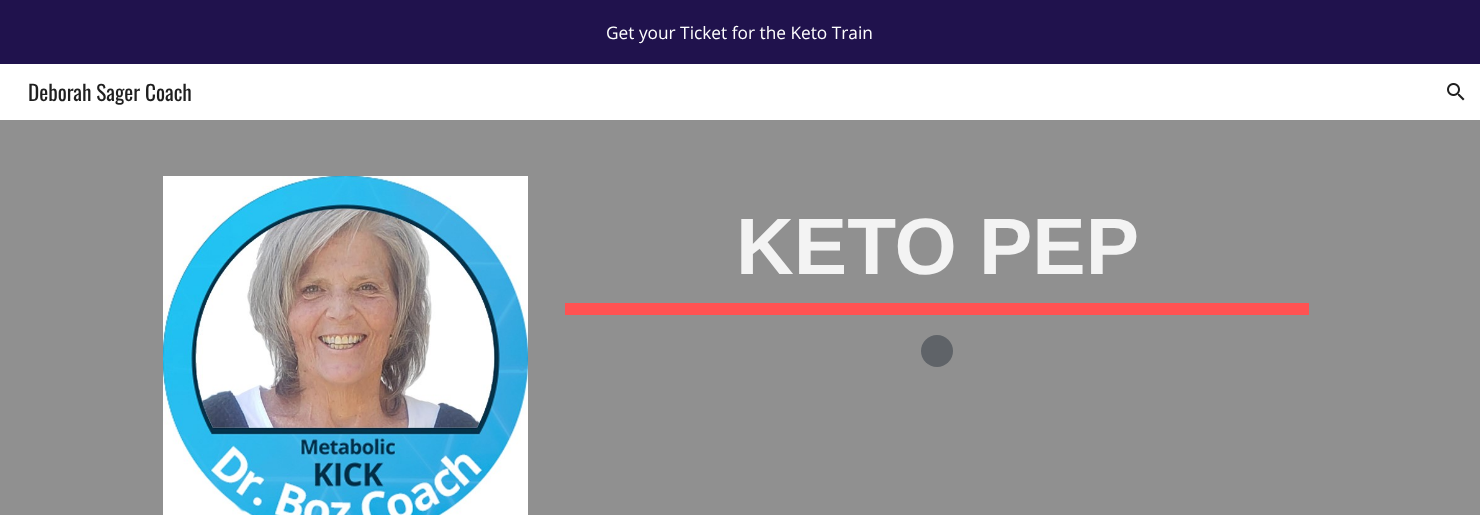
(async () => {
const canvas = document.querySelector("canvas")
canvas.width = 1480
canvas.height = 515
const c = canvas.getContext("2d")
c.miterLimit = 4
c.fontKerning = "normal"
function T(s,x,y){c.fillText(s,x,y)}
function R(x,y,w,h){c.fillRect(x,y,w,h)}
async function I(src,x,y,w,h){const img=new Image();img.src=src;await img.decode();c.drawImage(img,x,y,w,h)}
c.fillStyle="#909090"
R(0,0,1480,515)
c.fillStyle="#20124d"
R(0,0,1480,64)
c.font="17.3px Open Sans"
c.fillStyle="#fff"
T("Get your Ticket for the Keto Train",606,39)
R(0,64,1480,56)
c.font="21.25px Oswald"
c.fillStyle="#1f1f1f"
T("Deborah Sager Coach",28,101)
await I("1.png",1447,83,18,18)
await I("2.png",163,176,365,339)
c.font="bold 80px Liberation Sans"
c.fillStyle="#f3f3f3"
T("KETO PEP",736,274)
c.fillStyle="#ff5252"
R(565,303,744,12)
c.fillStyle="#5f6368"
c.beginPath()
c.arc(937,351,16,0,7)
c.fill()
})()
